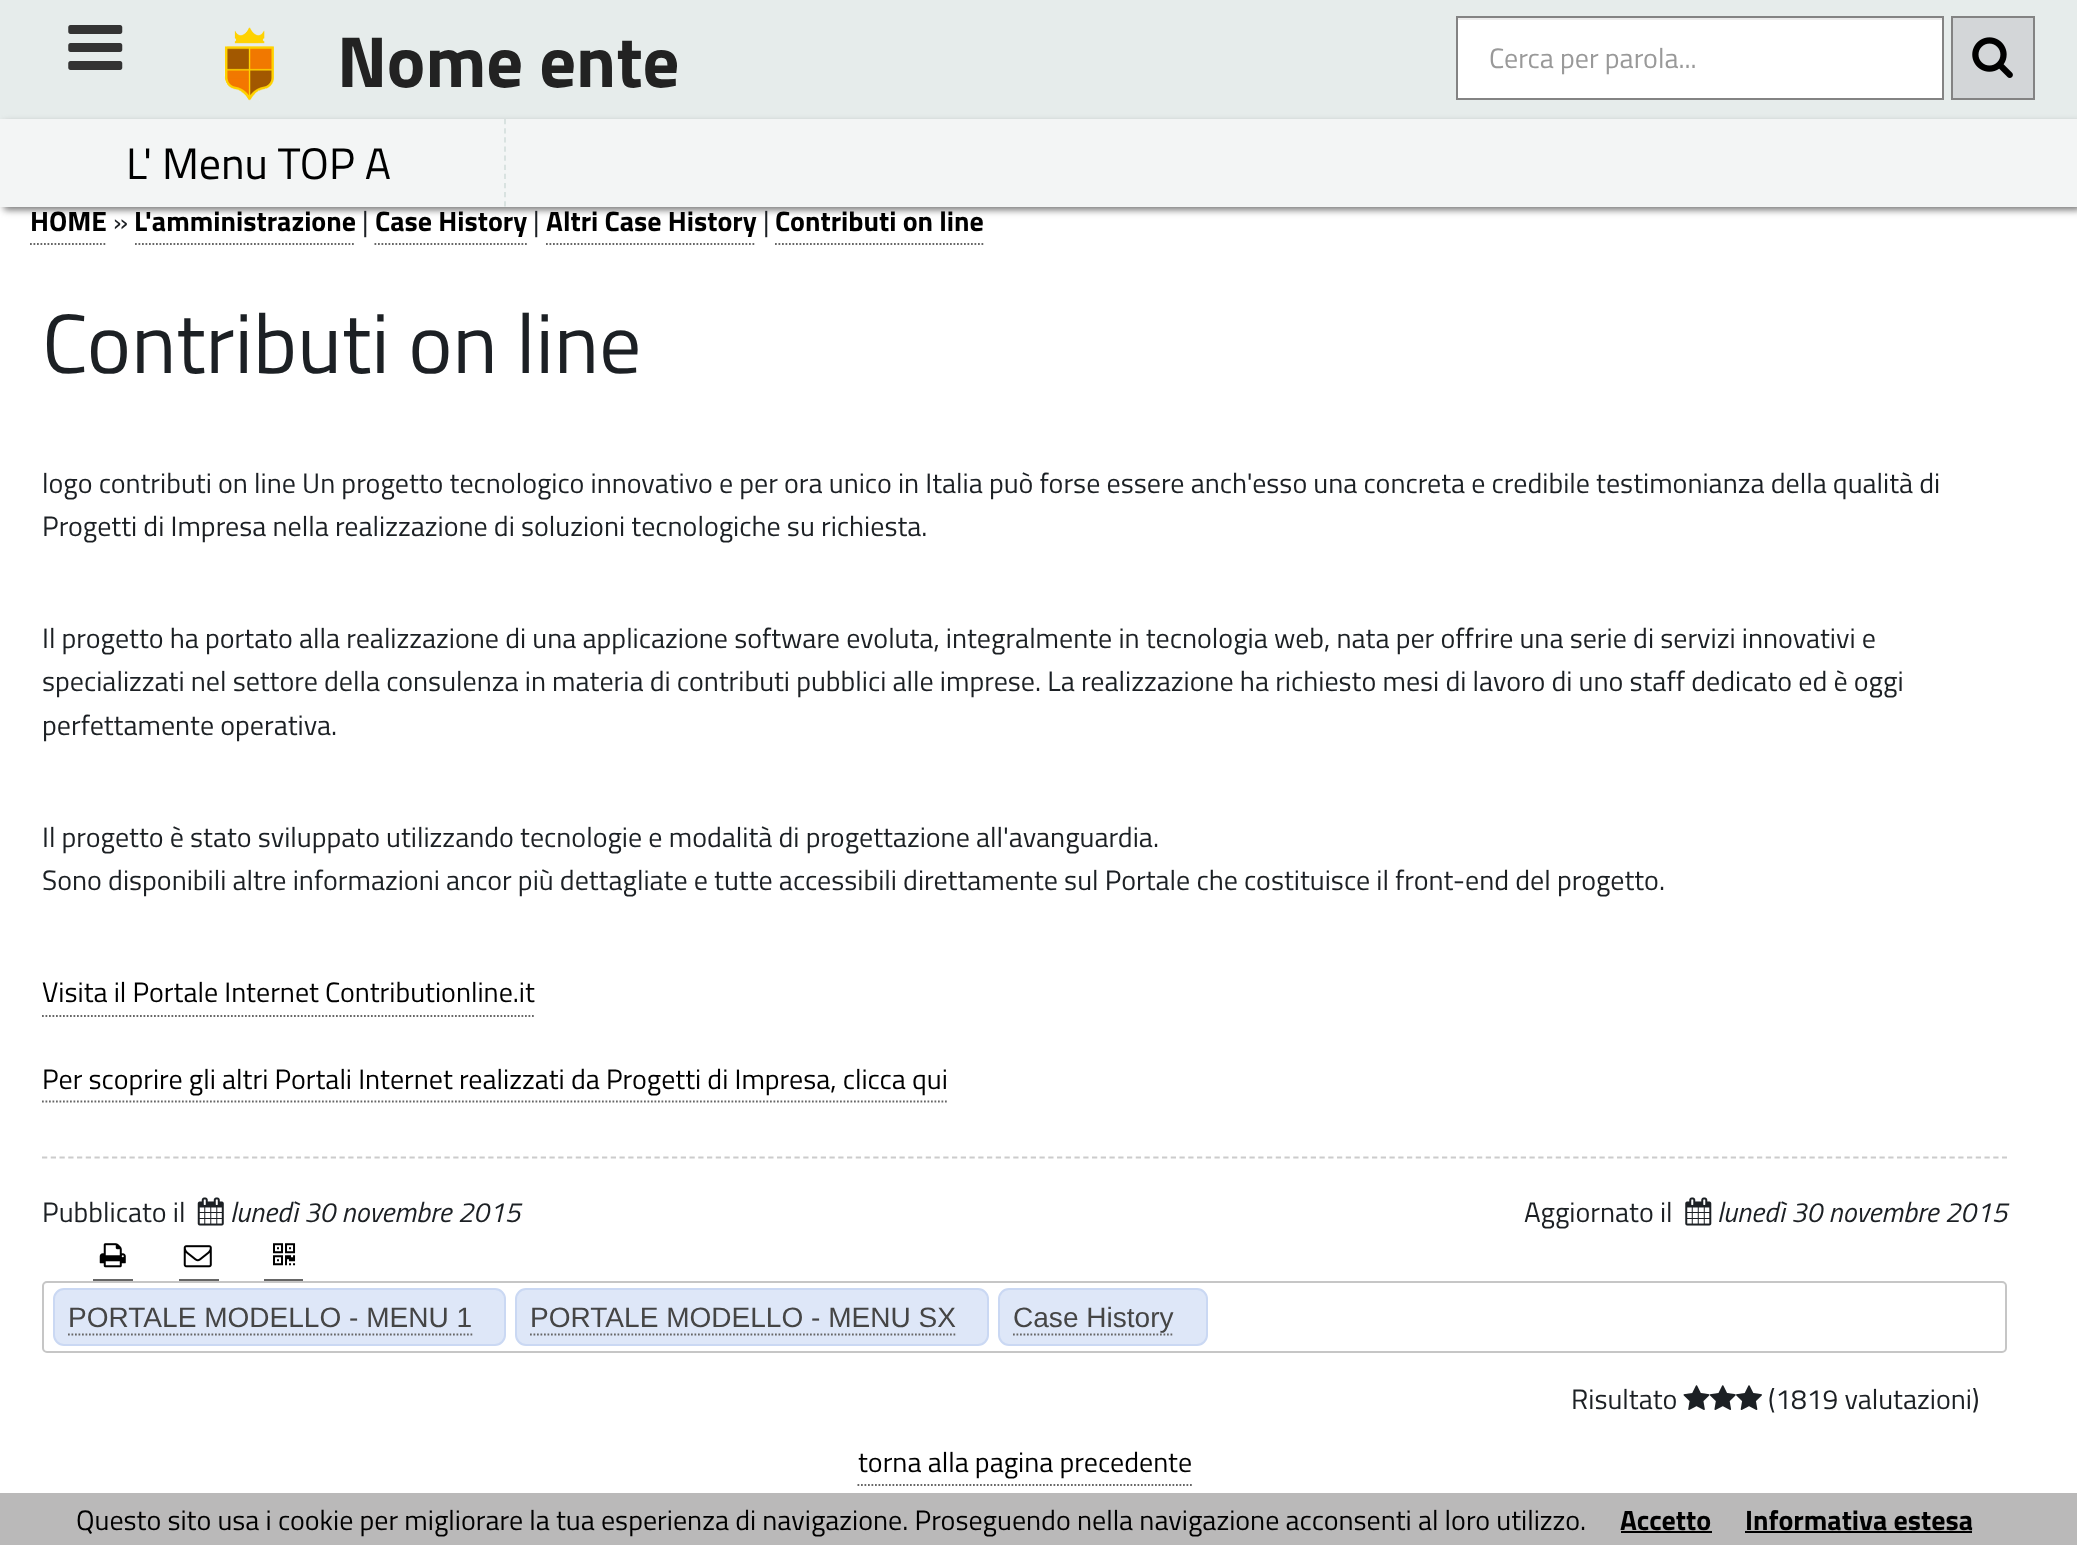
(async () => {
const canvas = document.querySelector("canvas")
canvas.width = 2077
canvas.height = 1545
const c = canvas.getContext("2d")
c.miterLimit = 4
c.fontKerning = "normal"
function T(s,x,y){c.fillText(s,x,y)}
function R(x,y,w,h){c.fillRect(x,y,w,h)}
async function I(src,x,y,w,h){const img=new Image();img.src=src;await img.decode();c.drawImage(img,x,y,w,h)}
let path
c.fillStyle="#fff"
R(0,0,2077,1545)
c.fillStyle="#e6eceb"
R(0,0,2077,119)
await I("1.png",68,25,55,45)
await I("2.png",224,27,50,74)
c.font="bold 72.5px Titillium Web"
c.fillStyle="#222"
T("Nome ente",337,87)
c.fillStyle="#fff"
R(1458,20,484,78)
c.fillStyle="#ececec"
R(1458,18,485,2)
c.strokeStyle="#838383"
c.lineWidth=2
c.strokeRect(1457,17,486,82)
c.font="28.05px Titillium Web"
c.fillStyle="#999"
T("Cerca per parola...",1489,68)
c.fillStyle="#d3d6d8"
c.beginPath()
c.rect(1952,17,82,82)
c.fill()
c.stroke()
await I("3.png",1972,37,41,41)
c.fillStyle="#f3f5f5"
R(0,119,2077,88)
c.save()
path = new Path2D("M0 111h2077v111h-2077zm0 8h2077v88h-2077z")
c.clip(path,"evenodd")
c.fillStyle="#777"
c.filter="blur(3.5px)"
c.beginPath()
c.rect(4,123,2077,87)
c.fill()
c.filter="none"
c.restore()
path = new Path2D("M505 119v87.5")
c.strokeStyle="#d6e0de"
c.lineWidth=1.8
c.setLineDash([5.25,3.89])
c.stroke(path)
c.font="44px Titillium Web"
c.fillStyle="#000"
T("L' Menu TOP A",126,179)
c.font="bold 28.05px Titillium Web"
T("HOME",30,231)
path = new Path2D("M30 244h77")
c.strokeStyle="#666"
c.setLineDash([1.75,1.75])
c.stroke(path)
c.font="28.05px Titillium Web"
c.fillStyle="#1c2024"
T("»",113,231)
c.font="bold 28.05px Titillium Web"
c.fillStyle="#000"
T("L'amministrazione",134,231)
path = new Path2D("M135 244h220")
c.stroke(path)
c.font="28.05px Titillium Web"
c.fillStyle="#1c2024"
T("|",362,231)
c.font="bold 28.05px Titillium Web"
c.fillStyle="#000"
T("Case History",375,231)
path = new Path2D("M374.5 244h152.5")
c.stroke(path)
c.font="28.05px Titillium Web"
c.fillStyle="#1c2024"
T("|",533,231)
c.font="bold 28.05px Titillium Web"
c.fillStyle="#000"
T("Altri Case History",546,231)
path = new Path2D("M546 244h210")
c.stroke(path)
c.font="28.05px Titillium Web"
c.fillStyle="#1c2024"
T("|",763,231)
c.font="bold 28.05px Titillium Web"
c.fillStyle="#000"
T("Contributi on line",775,231)
path = new Path2D("M775 244h208.5")
c.stroke(path)
c.font="84px Titillium Web"
c.fillStyle="#1c2024"
T("Contributi on line",42,373)
c.font="28.05px Titillium Web"
T("logo contributi on line Un progetto tecnologico innovativo e per ora unico in Italia può forse essere anch'esso una concreta e credibile testimonianza della qualità di",42,493)
T("Progetti di Impresa nella realizzazione di soluzioni tecnologiche su richiesta.",42,536)
T("Il progetto ha portato alla realizzazione di una applicazione software evoluta, integralmente in tecnologia web, nata per offrire una serie di servizi innovativi e",42,648)
T("specializzati nel settore della consulenza in materia di contributi pubblici alle imprese. La realizzazione ha richiesto mesi di lavoro di uno staff dedicato ed è oggi",42,691)
T("perfettamente operativa.",42,735)
T("Il progetto è stato sviluppato utilizzando tecnologie e modalità di progettazione all'avanguardia.",42,847)
T("Sono disponibili altre informazioni ancor più dettagliate e tutte accessibili direttamente sul Portale che costituisce il front-end del progetto.",42,890)
c.fillStyle="#000"
T("Visita il Portale Internet Contributionline.it",42,1002)
path = new Path2D("M42 1016h492")
c.stroke(path)
T("Per scoprire gli altri Portali Internet realizzati da Progetti di Impresa, clicca qui",42,1089)
path = new Path2D("M42 1101.5h905")
c.stroke(path)
path = new Path2D("M42 1157.5h1965")
c.strokeStyle="#ccc"
c.setLineDash([5.25,3.5])
c.stroke(path)
c.fillStyle="#1c2024"
T("Pubblicato il",42,1222)
await I("4.png",197,1197,27,29)
c.font="italic 28.05px Titillium Web"
T("lunedì 30 novembre 2015",230,1222)
c.font="28.05px Titillium Web"
T("Aggiornato il",1524,1222)
await I("5.png",1685,1197,27,29)
c.font="italic 28.05px Titillium Web"
T("lunedì 30 novembre 2015",1717,1222)
c.fillStyle="#666"
R(93,1279,40,2)
await I("6.png",99,1243,27,25)
R(179,1279,40,2)
await I("7.png",183,1245,29,23)
R(264,1279,39,2)
await I("8.png",273,1243,23,23)
c.beginPath()
c.roundRect(43,1282,1963,70,4)
c.strokeStyle="#c6c6c6"
c.lineWidth=2
c.setLineDash([])
c.stroke()
c.fillStyle="#dee7f8"
c.beginPath()
c.roundRect(54,1289,451,56,10)
c.fill()
c.strokeStyle="#cad8f3"
c.stroke()
c.font="28.05px Liberation Sans"
c.fillStyle="#454545"
T("PORTALE MODELLO - MENU 1",68,1327)
path = new Path2D("M68 1334.5h404.5")
c.strokeStyle="#666"
c.lineWidth=1.8
c.setLineDash([1.75,1.75])
c.stroke(path)
c.fillStyle="#dee7f8"
c.beginPath()
c.roundRect(516,1289,472,56,10)
c.fill()
c.strokeStyle="#cad8f3"
c.lineWidth=2
c.setLineDash([])
c.stroke()
c.fillStyle="#454545"
T("PORTALE MODELLO - MENU SX",530,1327)
path = new Path2D("M530 1334.5h425.5")
c.strokeStyle="#666"
c.lineWidth=1.8
c.setLineDash([1.75,1.75])
c.stroke(path)
c.fillStyle="#dee7f8"
c.beginPath()
c.roundRect(999,1289,208,56,10)
c.fill()
c.strokeStyle="#cad8f3"
c.lineWidth=2
c.setLineDash([])
c.stroke()
c.fillStyle="#454545"
T("Case History",1013,1327)
path = new Path2D("M1013 1334.5h161")
c.strokeStyle="#666"
c.lineWidth=1.8
c.setLineDash([1.75,1.75])
c.stroke(path)
c.font="28.05px Titillium Web"
c.fillStyle="#1c2024"
T("Risultato",1571,1409)
await I("9.png",1683,1385,27,25)
await I("10.png",1709,1385,27,25)
await I("11.png",1736,1385,26,25)
T("(1819 valutazioni)",1768,1409)
c.fillStyle="#000"
T("torna alla pagina precedente",858,1472)
path = new Path2D("M857.5 1485h334.5")
c.stroke(path)
c.fillStyle="#bab9b9"
R(0,1493,2077,52)
c.fillStyle="#000"
T("Questo sito usa i cookie per migliorare la tua esperienza di navigazione. Proseguendo nella navigazione acconsenti al loro utilizzo.",76,1530)
c.font="bold 28.05px Titillium Web"
T("Accetto",1620,1530)
R(1621,1531,91,2)
T("Informativa estesa",1745,1530)
R(1745,1531,227,2)
})()
